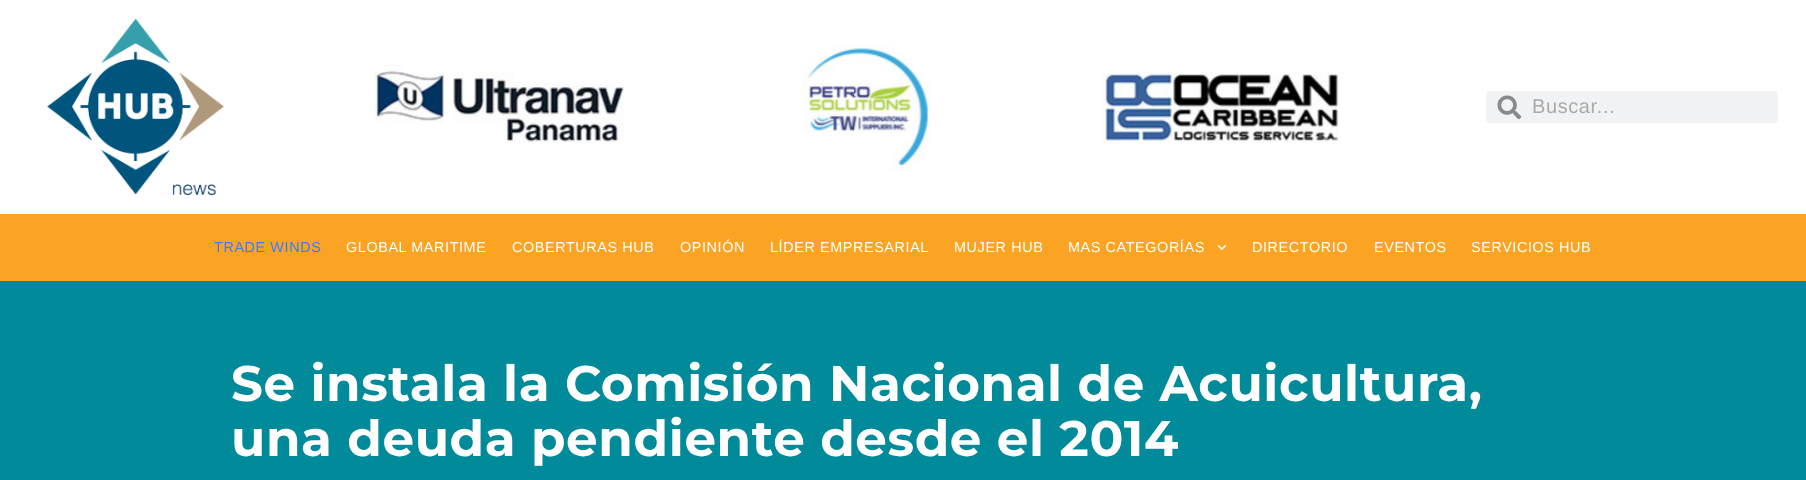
(async () => {
const canvas = document.querySelector("canvas")
canvas.width = 1806
canvas.height = 480
const c = canvas.getContext("2d")
c.miterLimit = 4
c.fontKerning = "normal"
function T(s,x,y){c.fillText(s,x,y)}
function R(x,y,w,h){c.fillRect(x,y,w,h)}
function Q(x,y,w,h,r){c.beginPath();c.roundRect(x,y,w,h,r);c.fill()}
async function I(src,x,y,w,h){const img=new Image();img.src=src;await img.decode();c.drawImage(img,x,y,w,h)}
c.fillStyle="#fff"
R(0,0,1806,480)
await I("1.png",47,18,177,177)
await I("2.png",374,64,250,79)
await I("3.png",802,44,131,127)
await I("4.png",1102,72,238,71)
c.fillStyle="#f1f2f3"
Q(1486,91,292,32,4)
await I("5.png",1497,95,25,25)
c.letterSpacing="0.6px"
c.font="20px Liberation Sans"
c.fillStyle="#aaa"
T("Buscar...",1532,113)
c.fillStyle="#fba322"
R(0,214,1806,67)
c.font="14.4px Liberation Sans"
c.fillStyle="#377dff"
T("TRADE WINDS",214,252)
c.fillStyle="#fff"
T("GLOBAL MARITIME",346,252)
T("COBERTURAS HUB",512,252)
T("OPINIÓN",680,252)
T("LÍDER EMPRESARIAL",770,252)
T("MUJER HUB",954,252)
T("MAS CATEGORÍAS",1068,252)
await I("6.png",1217,244,10,6)
T("DIRECTORIO",1252,252)
T("EVENTOS",1374,252)
T("SERVICIOS HUB",1471,252)
c.fillStyle="#008a9a"
R(0,281,1806,199)
c.font="bold 50px Montserrat"
c.fillStyle="#fff"
T("Se instala la Comisión Nacional de Acuicultura,",231,401)
T("una deuda pendiente desde el 2014",231,456)
})()
